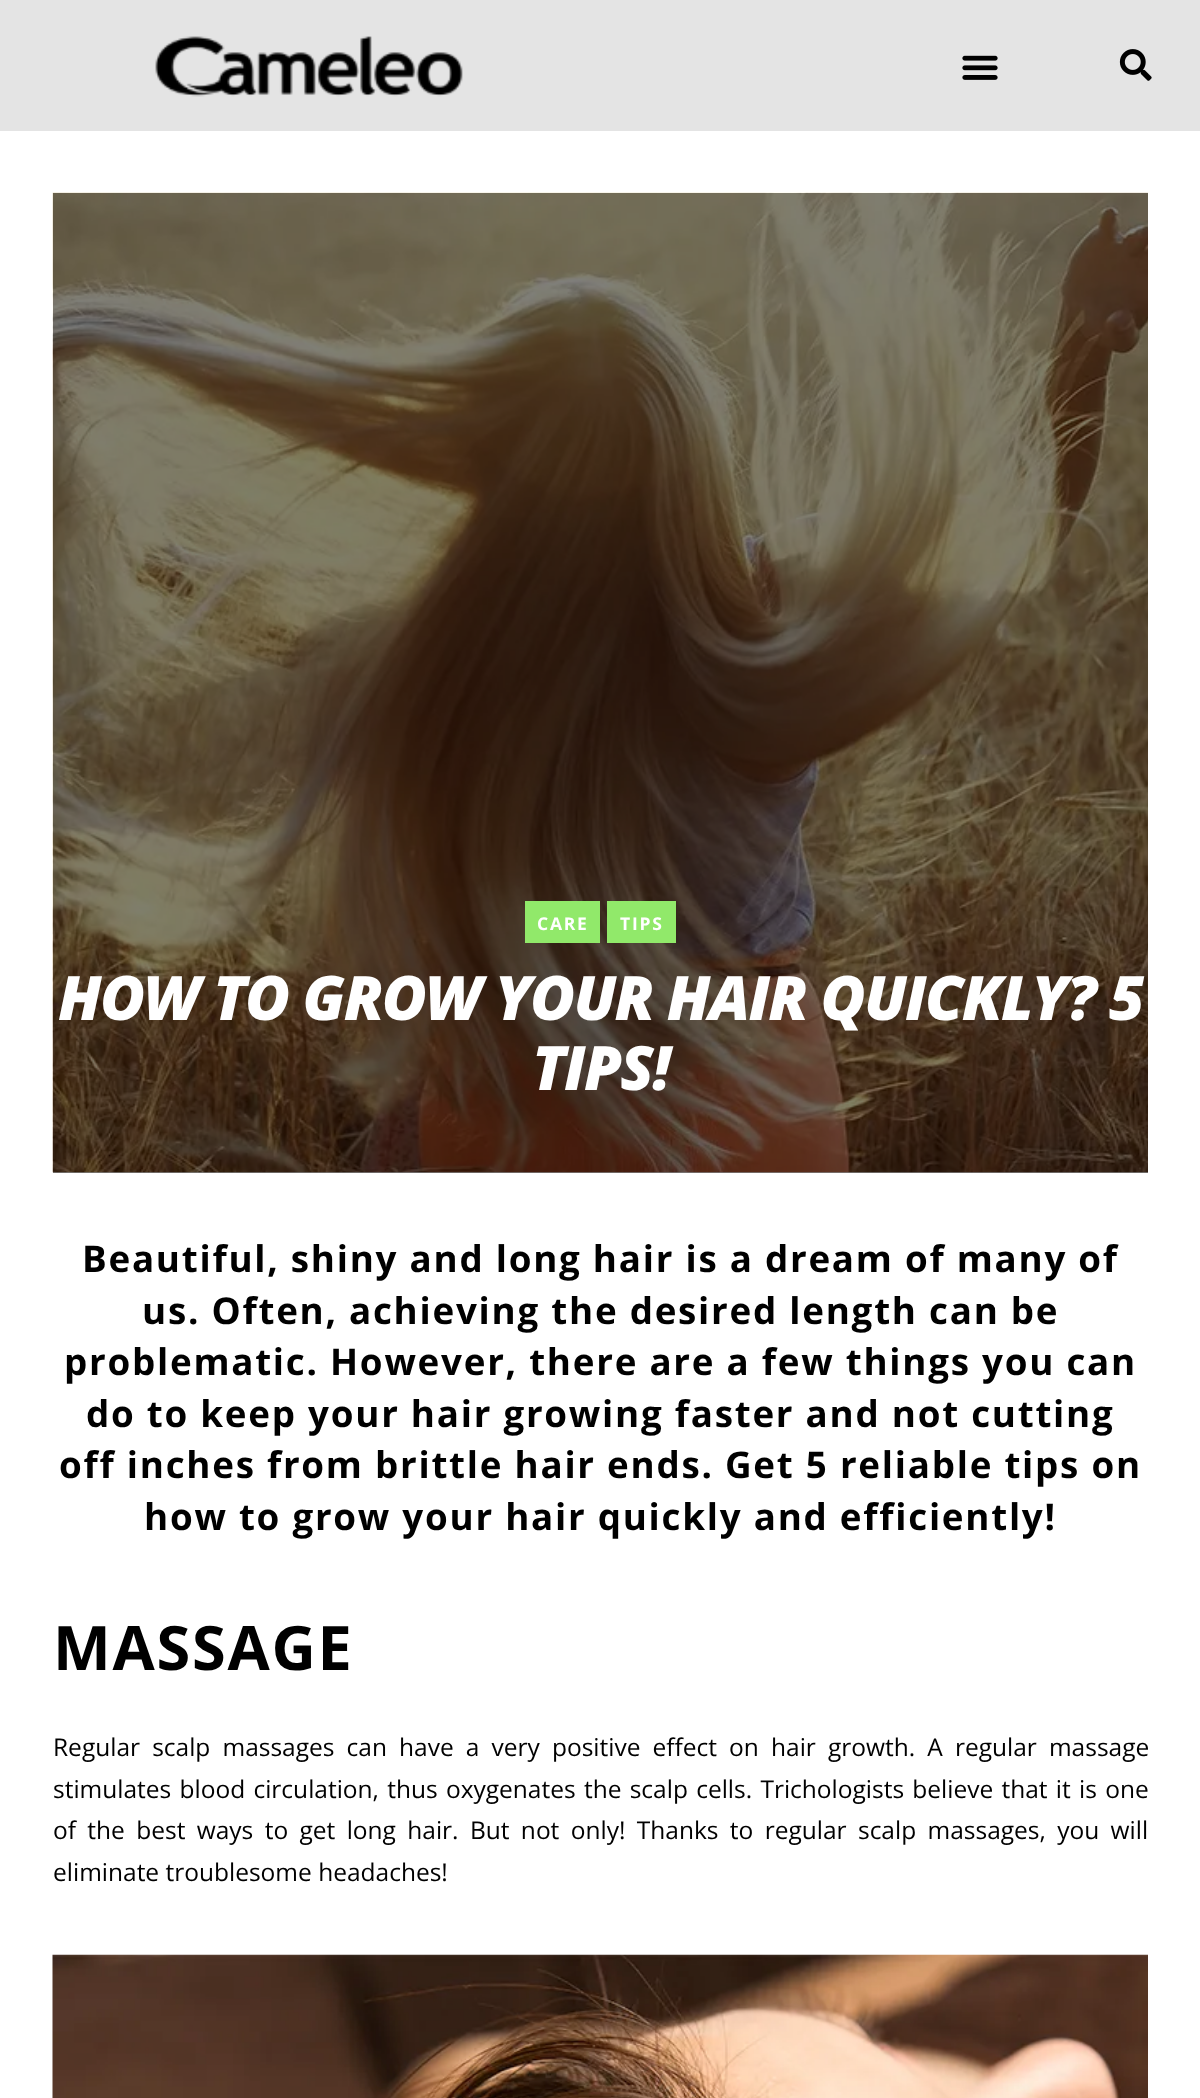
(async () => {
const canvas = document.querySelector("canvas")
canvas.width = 1200
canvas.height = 2098
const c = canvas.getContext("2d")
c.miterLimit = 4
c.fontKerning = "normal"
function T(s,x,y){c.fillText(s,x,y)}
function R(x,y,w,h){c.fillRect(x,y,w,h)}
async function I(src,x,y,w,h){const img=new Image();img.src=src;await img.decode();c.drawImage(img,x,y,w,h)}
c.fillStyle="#e4e4e4"
R(0,0,1200,2098)
await I("1.png",155,36,308,61)
await I("2.png",962,55,36,25)
await I("3.png",1119,49,33,32)
c.fillStyle="#fff"
R(0,131,1200,1967)
await I("4.png",52,192,1096,981)
c.fillStyle="#00000080"
R(53,193,1095,980)
c.fillStyle="#91e96a"
R(525,901,75,42)
c.letterSpacing="1.75px"
c.font="bold 17.5px Open Sans"
c.fillStyle="#fff"
T("CARE",537,930)
c.fillStyle="#91e96a"
R(607,901,69,42)
c.fillStyle="#fff"
T("TIPS",620,930)
c.letterSpacing="-1.75px"
c.font="italic 800 61.25px Open Sans"
T("HOW TO GROW YOUR HAIR QUICKLY? 5",58,1020)
T("TIPS!",532,1090)
c.letterSpacing="1.75px"
c.font="bold 36.75px Open Sans"
c.fillStyle="#000"
T("Beautiful, shiny and long hair is a dream of many of",82,1272)
T("us. Often, achieving the desired length can be",142,1324)
T("problematic. However, there are a few things you can",64,1375)
T("do to keep your hair growing faster and not cutting",86,1427)
T("off inches from brittle hair ends. Get 5 reliable tips on",59,1478)
T("how to grow your hair quickly and efficiently!",144,1530)
c.font="bold 61.25px Open Sans"
T("MASSAGE",53,1670)
c.letterSpacing="0px"
c.wordSpacing="5.75px"
c.font="24.5px Open Sans"
T("Regular scalp massages can have a very positive effect on hair growth. A regular massage",53,1756)
c.wordSpacing="1.9px"
T("stimulates blood circulation, thus oxygenates the scalp cells. Trichologists believe that it is one",53,1798)
c.wordSpacing="5px"
T("of the best ways to get long hair. But not only! Thanks to regular scalp massages, you will",53,1839)
c.wordSpacing="0px"
T("eliminate troublesome headaches!",53,1881)
await I("5.png",52,1954,1096,144)
})()
